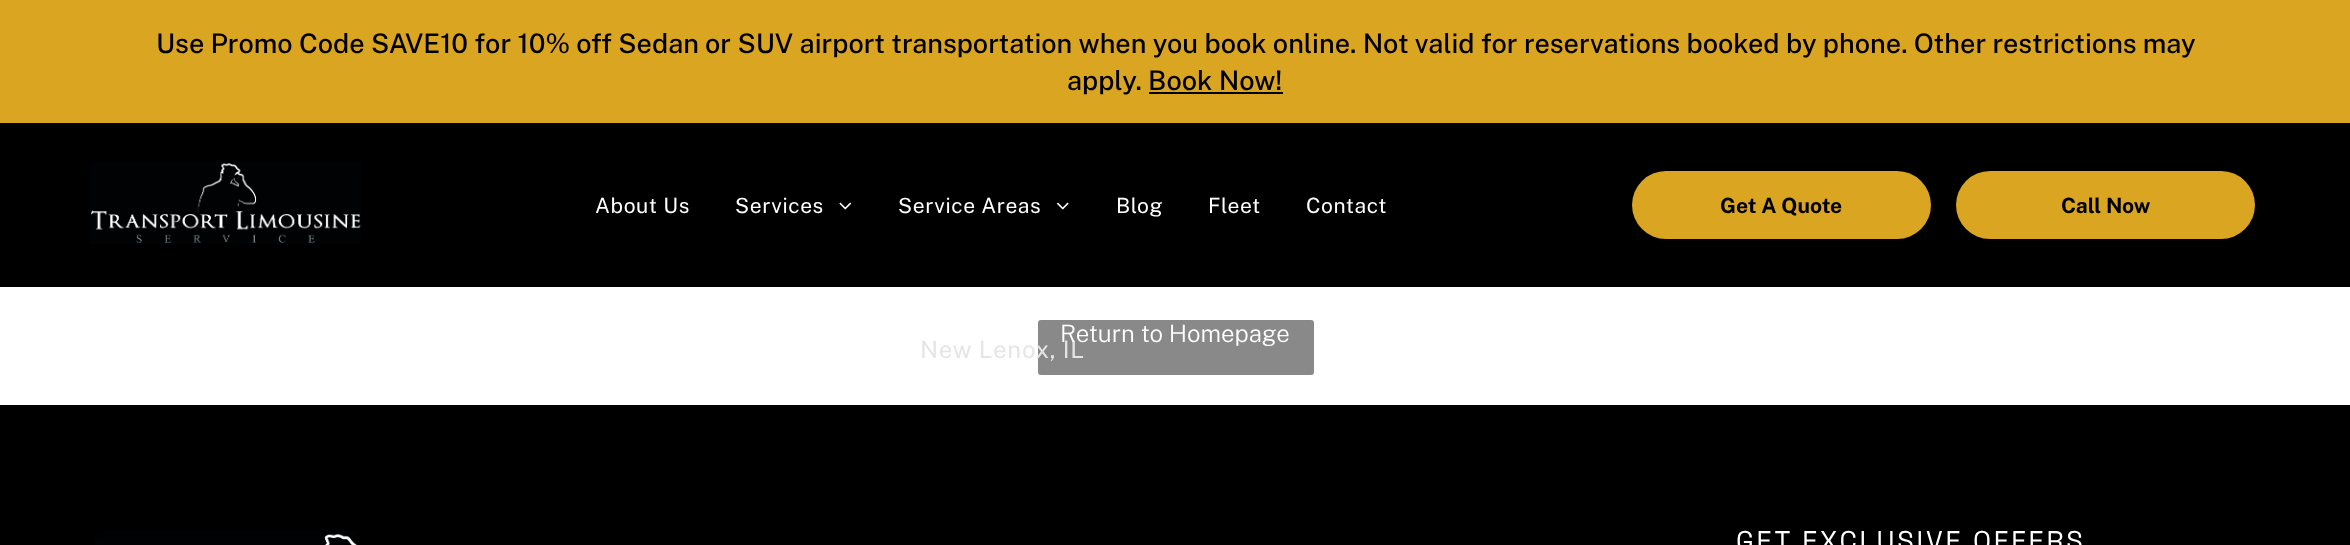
(async () => {
const canvas = document.querySelector("canvas")
canvas.width = 2350
canvas.height = 545
const c = canvas.getContext("2d")
c.miterLimit = 4
c.fontKerning = "normal"
function T(s,x,y){c.fillText(s,x,y)}
function R(x,y,w,h){c.fillRect(x,y,w,h)}
function Q(x,y,w,h,r){c.beginPath();c.roundRect(x,y,w,h,r);c.fill()}
async function I(src,x,y,w,h){const img=new Image();img.src=src;await img.decode();c.drawImage(img,x,y,w,h)}
c.fillStyle="#fff"
R(0,0,2350,545)
c.fillStyle="#000"
R(0,123,2350,164)
c.fillStyle="#daa520"
R(0,0,2350,123)
c.font="500 27px Public Sans"
c.fillStyle="#000"
T("Use Promo Code SAVE10 for 10% off Sedan or SUV airport transportation when you book online. Not valid for reservations booked by phone. Other restrictions may",156,53)
T("apply. Book Now!",1067,90)
R(1149,92,134,2)
await I("1.png",89,162,272,82)
c.letterSpacing="0.6px"
c.font="21px Public Sans"
c.fillStyle="#fff"
T("About Us",595,213)
T("Services",735,213)
await I("2.png",839,202,13,8)
T("Service Areas",898,213)
await I("3.png",1056,202,13,8)
c.fillStyle="#898989"
Q(1038,320,276,55,3)
c.letterSpacing="0.75px"
c.font="24px Public Sans"
c.fillStyle="#e5e5e5"
T("New Lenox, IL",920,358)
c.letterSpacing="0.6px"
c.font="21px Public Sans"
c.fillStyle="#fff"
T("Blog",1116,213)
T("Fleet",1208,213)
T("Contact",1306,213)
c.fillStyle="#daa520"
Q(1632,171,299,68,34)
c.letterSpacing="0px"
c.font="bold 21px Public Sans"
c.fillStyle="#000"
T("Get A Quote",1720,213)
c.fillStyle="#daa520"
Q(1956,171,299,68,34)
c.fillStyle="#000"
T("Call Now",2061,213)
c.font="300 24px Public Sans"
c.fillStyle="#fff"
T("Return to Homepage",1060,342)
c.fillStyle="#000"
R(0,405,2350,140)
await I("4.png",95,531,263,14)
c.letterSpacing="2.75px"
c.font="27px Space Grotesk"
c.fillStyle="#fff"
T("GET EXCLUSIVE OFFERS",1736,550)
})()
